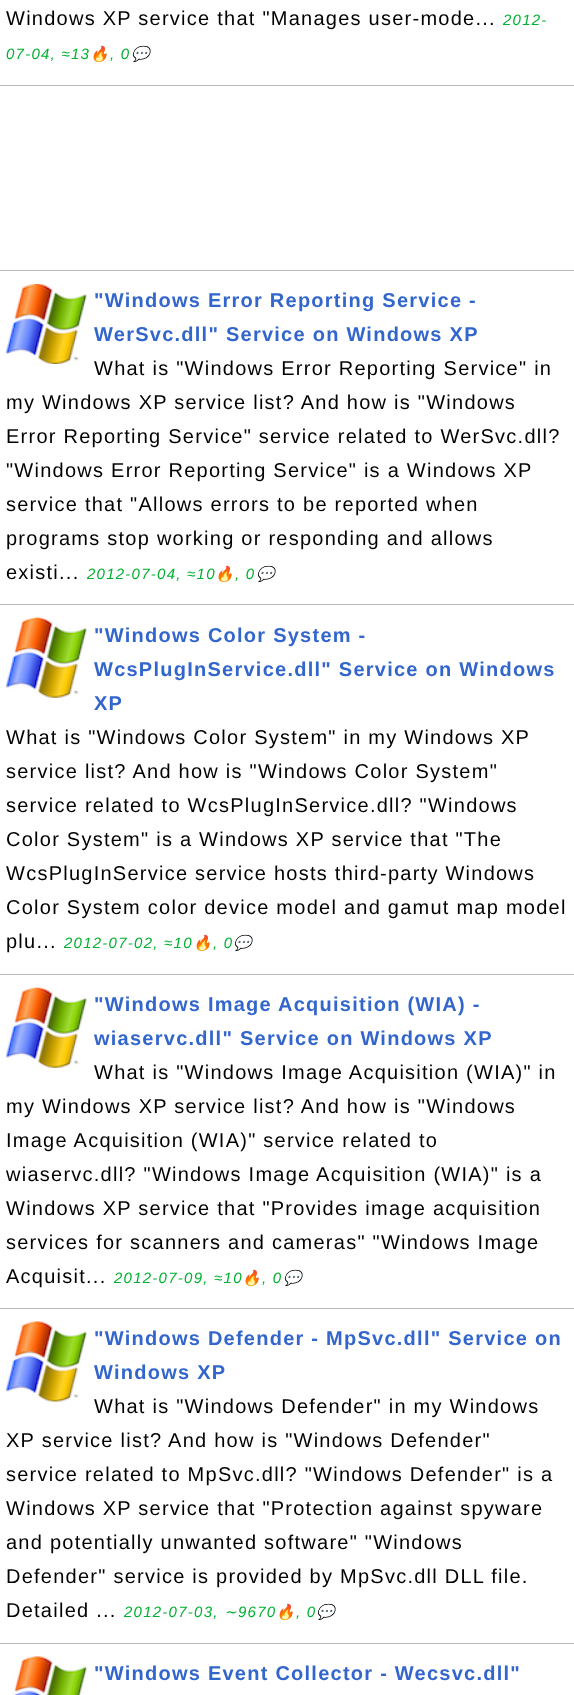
(async () => {
const canvas = document.querySelector("canvas")
canvas.width = 574
canvas.height = 1695
const c = canvas.getContext("2d")
c.miterLimit = 4
c.fontKerning = "normal"
function T(s,x,y){c.fillText(s,x,y)}
function R(x,y,w,h){c.fillRect(x,y,w,h)}
async function I(src,x,y,w,h){const img=new Image();img.src=src;await img.decode();c.drawImage(img,x,y,w,h)}
c.fillStyle="#fff"
R(0,0,574,1695)
c.letterSpacing="1.25px"
c.font="20px Liberation Sans"
c.fillStyle="#000"
T("Windows XP service that \"Manages user-mode...",6,25)
c.font="italic 15px Liberation Sans"
c.fillStyle="#00b030"
T("2012-",503,25)
T("07-04, ≈13",6,59)
c.font="italic 15px Noto Color Emoji"
T("🔥",90,59)
c.font="italic 15px Liberation Sans"
T(", 0",110,59)
c.font="italic 15px Noto Color Emoji"
T("💬",131,59)
c.fillStyle="#bbb"
R(0,85,574,1)
R(0,270,574,1)
await I("1.png",6,284,81,80)
c.font="bold 20px Liberation Sans"
c.fillStyle="#36c"
T("\"Windows Error Reporting Service -",94,307)
T("WerSvc.dll\" Service on Windows XP",94,341)
c.font="20px Liberation Sans"
c.fillStyle="#000"
T("What is \"Windows Error Reporting Service\" in",94,375)
T("my Windows XP service list? And how is \"Windows",6,409)
T("Error Reporting Service\" service related to WerSvc.dll?",6,443)
T("\"Windows Error Reporting Service\" is a Windows XP",6,477)
T("service that \"Allows errors to be reported when",6,511)
T("programs stop working or responding and allows",6,545)
T("existi...",6,579)
c.font="italic 15px Liberation Sans"
c.fillStyle="#00b030"
T("2012-07-04, ≈10",87,579)
c.font="italic 15px Noto Color Emoji"
T("🔥",215,579)
c.font="italic 15px Liberation Sans"
T(", 0",235,579)
c.font="italic 15px Noto Color Emoji"
T("💬",256,579)
c.fillStyle="#bbb"
R(0,604,574,1)
await I("2.png",6,617,81,81)
c.font="bold 20px Liberation Sans"
c.fillStyle="#36c"
T("\"Windows Color System -",94,642)
T("WcsPlugInService.dll\" Service on Windows",94,676)
T("XP",94,710)
c.font="20px Liberation Sans"
c.fillStyle="#000"
T("What is \"Windows Color System\" in my Windows XP",6,744)
T("service list? And how is \"Windows Color System\"",6,778)
T("service related to WcsPlugInService.dll? \"Windows",6,812)
T("Color System\" is a Windows XP service that \"The",6,846)
T("WcsPlugInService service hosts third-party Windows",6,880)
T("Color System color device model and gamut map model",6,914)
T("plu...",6,948)
c.font="italic 15px Liberation Sans"
c.fillStyle="#00b030"
T("2012-07-02, ≈10",64,948)
c.font="italic 15px Noto Color Emoji"
T("🔥",193,948)
c.font="italic 15px Liberation Sans"
T(", 0",213,948)
c.font="italic 15px Noto Color Emoji"
T("💬",233,948)
c.fillStyle="#bbb"
R(0,974,574,1)
await I("2.png",6,987,81,81)
c.font="bold 20px Liberation Sans"
c.fillStyle="#36c"
T("\"Windows Image Acquisition (WIA) -",94,1011)
T("wiaservc.dll\" Service on Windows XP",94,1045)
c.font="20px Liberation Sans"
c.fillStyle="#000"
T("What is \"Windows Image Acquisition (WIA)\" in",94,1079)
T("my Windows XP service list? And how is \"Windows",6,1113)
T("Image Acquisition (WIA)\" service related to",6,1147)
T("wiaservc.dll? \"Windows Image Acquisition (WIA)\" is a",6,1181)
T("Windows XP service that \"Provides image acquisition",6,1215)
T("services for scanners and cameras\" \"Windows Image",6,1249)
T("Acquisit...",6,1283)
c.font="italic 15px Liberation Sans"
c.fillStyle="#00b030"
T("2012-07-09, ≈10",114,1283)
c.font="italic 15px Noto Color Emoji"
T("🔥",242,1283)
c.font="italic 15px Liberation Sans"
T(", 0",262,1283)
c.font="italic 15px Noto Color Emoji"
T("💬",283,1283)
c.fillStyle="#bbb"
R(0,1308,574,1)
await I("3.png",6,1321,81,81)
c.font="bold 20px Liberation Sans"
c.fillStyle="#36c"
T("\"Windows Defender - MpSvc.dll\" Service on",94,1345)
T("Windows XP",94,1379)
c.font="20px Liberation Sans"
c.fillStyle="#000"
T("What is \"Windows Defender\" in my Windows",94,1413)
T("XP service list? And how is \"Windows Defender\"",6,1447)
T("service related to MpSvc.dll? \"Windows Defender\" is a",6,1481)
T("Windows XP service that \"Protection against spyware",6,1515)
T("and potentially unwanted software\" \"Windows",6,1549)
T("Defender\" service is provided by MpSvc.dll DLL file.",6,1583)
T("Detailed ...",6,1617)
c.font="italic 15px Liberation Sans"
c.fillStyle="#00b030"
T("2012-07-03,",124,1617)
c.font="italic 15px DejaVu Sans"
T("∼",224,1617)
c.font="italic 15px Liberation Sans"
T("9670",238,1617)
c.font="italic 15px Noto Color Emoji"
T("🔥",276,1617)
c.font="italic 15px Liberation Sans"
T(", 0",296,1617)
c.font="italic 15px Noto Color Emoji"
T("💬",316,1617)
c.fillStyle="#bbb"
R(0,1643,574,1)
await I("4.png",13,1656,74,39)
c.font="bold 20px Liberation Sans"
c.fillStyle="#36c"
T("\"Windows Event Collector - Wecsvc.dll\"",94,1680)
})()
